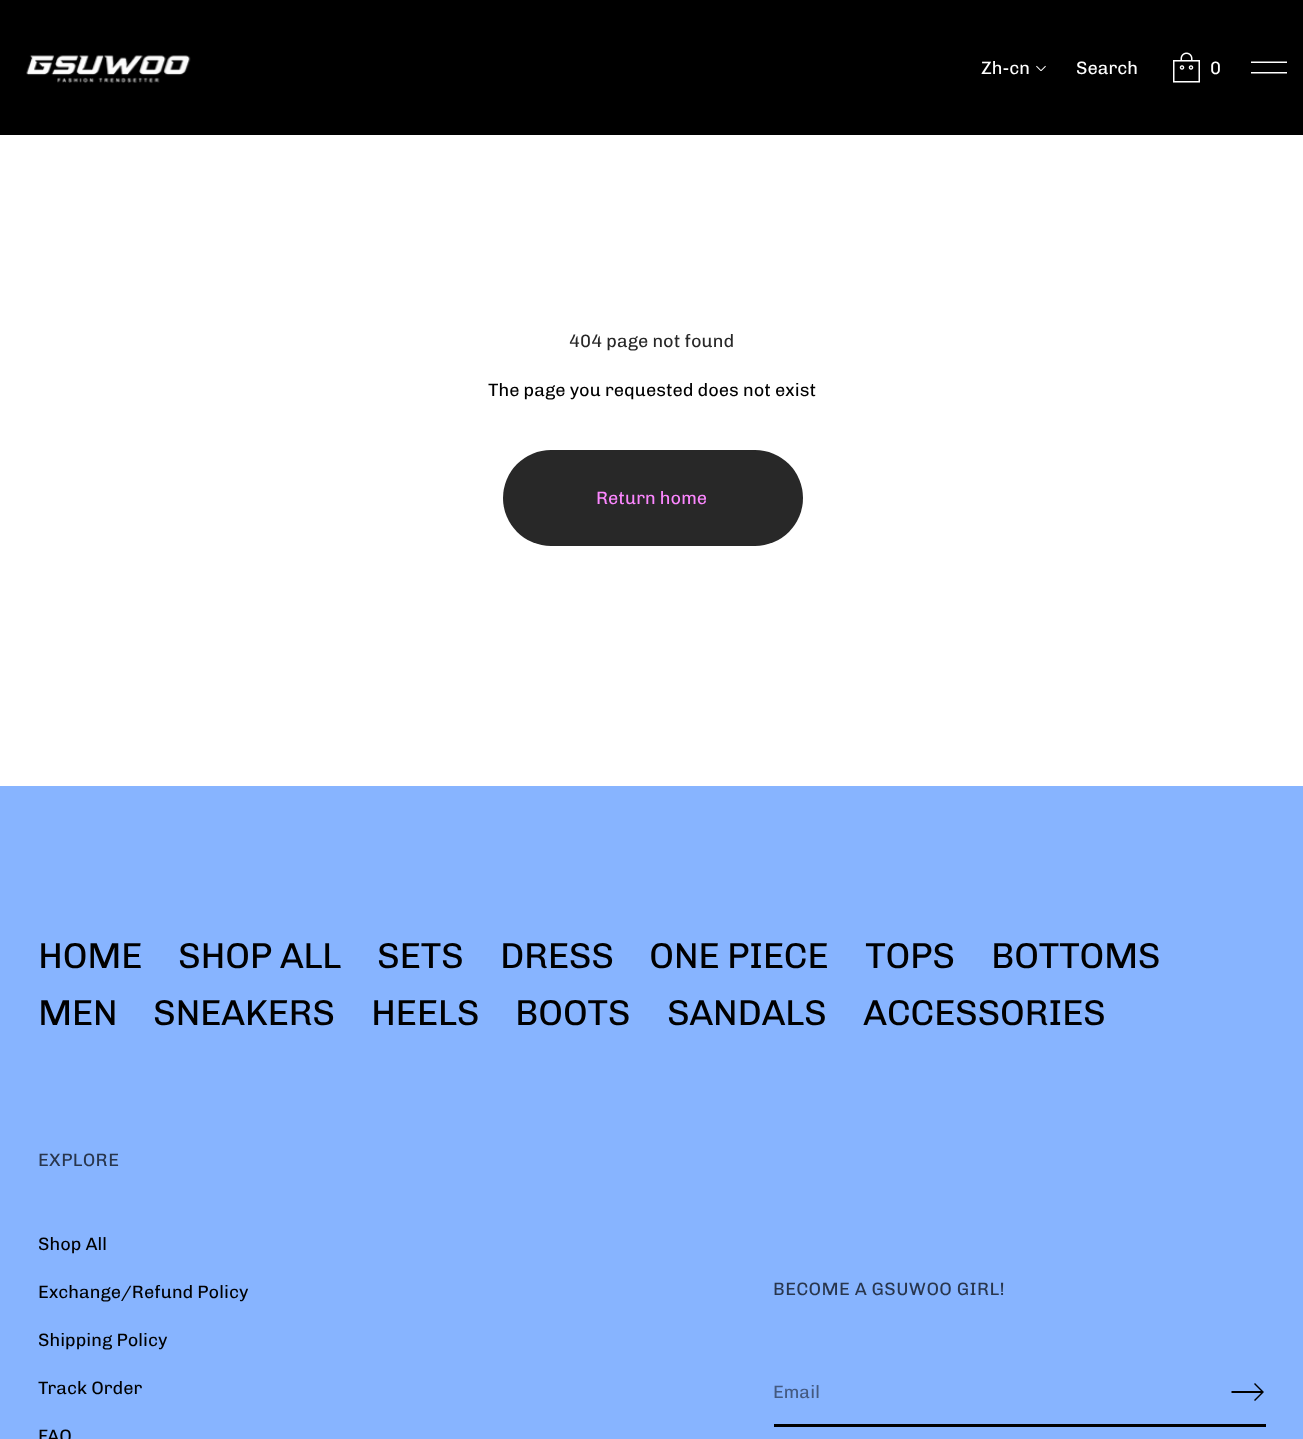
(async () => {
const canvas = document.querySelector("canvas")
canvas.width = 1303
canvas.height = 1439
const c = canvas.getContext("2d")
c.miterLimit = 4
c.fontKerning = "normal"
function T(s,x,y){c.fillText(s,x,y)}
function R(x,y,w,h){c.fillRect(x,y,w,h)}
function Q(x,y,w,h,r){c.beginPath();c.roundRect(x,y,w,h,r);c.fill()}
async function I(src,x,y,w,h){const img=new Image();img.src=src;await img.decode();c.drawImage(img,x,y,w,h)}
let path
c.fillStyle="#fff"
R(0,0,1303,1439)
c.fillStyle="#000"
R(0,0,1303,135)
await I("1.png",26,55,165,28)
c.font="18px Chivo"
c.fillStyle="#fff"
T("Zh-cn",981,74)
await I("2.png",1036,65,10,6)
T("Search",1076,74)
await I("3.png",1173,52,27,31)
T("0",1210,74)
path = new Path2D("M1251 61.5v1.5h36v-1.5zm0 12h36v-1.5h-36z")
c.fill(path)
c.fillStyle="#282828"
T("404 page not found",569,347)
c.fillStyle="#000"
T("The page you requested does not exist",488,396)
c.fillStyle="#282828"
Q(503,450,300,96,48)
c.fillStyle="#fc87ff"
T("Return home",596,504)
c.fillStyle="#87b4ff"
R(0,786,1303,653)
c.letterSpacing="-0.4px"
c.font="36px Chivo"
c.fillStyle="#000"
T("HOME",38,968)
T("SHOP ALL",178,968)
T("SETS",377,968)
T("DRESS",500,968)
T("ONE PIECE",649,968)
T("TOPS",865,968)
T("BOTTOMS",991,968)
T("MEN",38,1025)
T("SNEAKERS",153,1025)
T("HEELS",371,1025)
T("BOOTS",515,1025)
T("SANDALS",667,1025)
T("ACCESSORIES",863,1025)
c.letterSpacing="0.4px"
c.font="18px Chivo"
c.fillStyle="#29364d"
T("EXPLORE",38,1166)
c.letterSpacing="0px"
c.fillStyle="#000"
T("Shop All",38,1250)
T("Exchange/Refund Policy",38,1298)
T("Shipping Policy",38,1346)
T("Track Order",38,1394)
T("FAQ",38,1442)
c.letterSpacing="0.4px"
c.fillStyle="#29364d"
T("BECOME A GSUWOO GIRL!",773,1295)
c.fillStyle="#000"
R(774,1424,492,3)
c.letterSpacing="0px"
c.fillStyle="#445a80"
T("Email",773,1398)
c.fillStyle="#000"
path = new Path2D("M1254 1384l7 7h-29.5v2h29.5l-7 7l1 1l9-9l-9-9z")
c.fill(path)
})()
